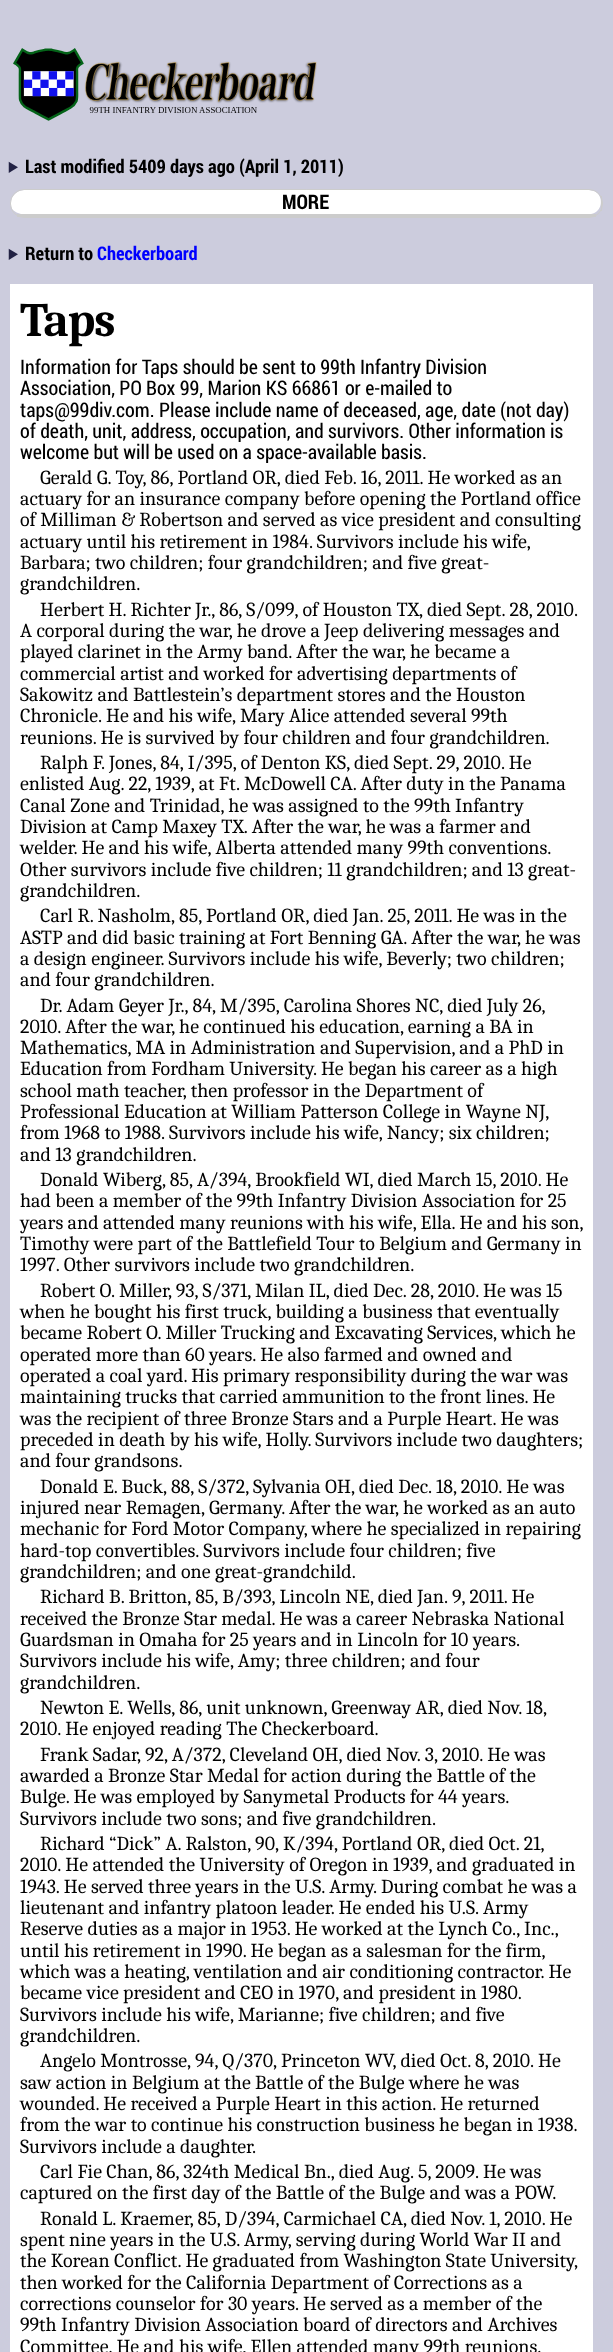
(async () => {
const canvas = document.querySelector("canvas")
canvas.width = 613
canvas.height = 2352
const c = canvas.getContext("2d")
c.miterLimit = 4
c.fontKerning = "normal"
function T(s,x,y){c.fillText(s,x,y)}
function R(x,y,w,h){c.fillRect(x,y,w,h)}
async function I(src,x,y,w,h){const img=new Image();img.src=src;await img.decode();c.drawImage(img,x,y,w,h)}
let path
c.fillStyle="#ccd"
R(0,0,613,2352)
await I("1.png",13,48,304,73)
await I("2.png",8,161,10,12)
c.font="bold 18.7px Roboto Condensed"
c.fillStyle="#000"
T("Last modified 5409 days ago (April 1, 2011)",25,173)
c.fillStyle="#fff"
path = new Path2D("M24 190h565c2 0 5 1 7 2c8 6 6 20-5 22h-570c-3-1-6-2-8-4c-7-8 2-20 11-20z")
c.fill(path)
c.beginPath()
c.roundRect(10.5,189.5,592,28,13.5)
c.strokeStyle="#ccc"
c.stroke()
c.fillStyle="#ccc"
R(601,196,1,15)
R(17,214,579,3)
c.font="bold 20px Roboto Condensed"
c.fillStyle="#000"
T("MORE",282,209)
await I("3.png",8,248,10,12)
c.font="bold 18.7px Roboto Condensed"
T("Return to",25,260)
c.fillStyle="#00f"
T("Checkerboard",97,260)
c.fillStyle="#fff"
R(10,284,583,2068)
c.letterSpacing="-1px"
c.font="bold 48px Caladea"
c.fillStyle="#000"
T("Taps",20,336)
c.letterSpacing="0px"
c.font="20px Roboto Condensed"
T("Information for Taps should be sent to 99th Infantry Division",20,374)
T("Association, PO Box 99, Marion KS 66861 or e-mailed to",20,395)
T("taps@99div.com. Please include name of deceased, age, date (not day)",20,417)
T("of death, unit, address, occupation, and survivors. Other information is",20,438)
T("welcome but will be used on a space-available basis.",20,459)
c.font="20px Caladea"
T("Gerald G. Toy, 86, Portland OR, died Feb. 16, 2011. He worked as an",40,484)
T("actuary for an insurance company before opening the Portland office",20,505)
T("of Milliman & Robertson and served as vice president and consulting",20,526)
T("actuary until his retirement in 1984. Survivors include his wife,",20,548)
T("Barbara; two children; four grandchildren; and five great-",20,569)
T("grandchildren.",20,590)
T("Herbert H. Richter Jr., 86, S/099, of Houston TX, died Sept. 28, 2010.",40,616)
T("A corporal during the war, he drove a Jeep delivering messages and",20,637)
T("played clarinet in the Army band. After the war, he became a",20,658)
T("commercial artist and worked for advertising departments of",20,680)
T("Sakowitz and Battlestein’s department stores and the Houston",20,701)
T("Chronicle. He and his wife, Mary Alice attended several 99th",20,722)
T("reunions. He is survived by four children and four grandchildren.",20,744)
T("Ralph F. Jones, 84, I/395, of Denton KS, died Sept. 29, 2010. He",40,769)
T("enlisted Aug. 22, 1939, at Ft. McDowell CA. After duty in the Panama",20,790)
T("Canal Zone and Trinidad, he was assigned to the 99th Infantry",20,812)
T("Division at Camp Maxey TX. After the war, he was a farmer and",20,833)
T("welder. He and his wife, Alberta attended many 99th conventions.",20,854)
T("Other survivors include five children; 11 grandchildren; and 13 great-",20,876)
T("grandchildren.",20,897)
T("Carl R. Nasholm, 85, Portland OR, died Jan. 25, 2011. He was in the",40,922)
T("ASTP and did basic training at Fort Benning GA. After the war, he was",20,944)
T("a design engineer. Survivors include his wife, Beverly; two children;",20,965)
T("and four grandchildren.",20,986)
T("Dr. Adam Geyer Jr., 84, M/395, Carolina Shores NC, died July 26,",40,1012)
T("2010. After the war, he continued his education, earning a BA in",20,1033)
T("Mathematics, MA in Administration and Supervision, and a PhD in",20,1054)
T("Education from Fordham University. He began his career as a high",20,1075)
T("school math teacher, then professor in the Department of",20,1097)
T("Professional Education at William Patterson College in Wayne NJ,",20,1118)
T("from 1968 to 1988. Survivors include his wife, Nancy; six children;",20,1139)
T("and 13 grandchildren.",20,1161)
T("Donald Wiberg, 85, A/394, Brookfield WI, died March 15, 2010. He",40,1186)
T("had been a member of the 99th Infantry Division Association for 25",20,1207)
T("years and attended many reunions with his wife, Ella. He and his son,",20,1229)
T("Timothy were part of the Battlefield Tour to Belgium and Germany in",20,1250)
T("1997. Other survivors include two grandchildren.",20,1271)
T("Robert O. Miller, 93, S/371, Milan IL, died Dec. 28, 2010. He was 15",40,1297)
T("when he bought his first truck, building a business that eventually",20,1318)
T("became Robert O. Miller Trucking and Excavating Services, which he",20,1339)
T("operated more than 60 years. He also farmed and owned and",20,1361)
T("operated a coal yard. His primary responsibility during the war was",20,1382)
T("maintaining trucks that carried ammunition to the front lines. He",20,1403)
T("was the recipient of three Bronze Stars and a Purple Heart. He was",20,1425)
T("preceded in death by his wife, Holly. Survivors include two daughters;",20,1446)
T("and four grandsons.",20,1467)
T("Donald E. Buck, 88, S/372, Sylvania OH, died Dec. 18, 2010. He was",40,1493)
T("injured near Remagen, Germany. After the war, he worked as an auto",20,1514)
T("mechanic for Ford Motor Company, where he specialized in repairing",20,1535)
T("hard-top convertibles. Survivors include four children; five",20,1557)
T("grandchildren; and one great-grandchild.",20,1578)
T("Richard B. Britton, 85, B/393, Lincoln NE, died Jan. 9, 2011. He",40,1603)
T("received the Bronze Star medal. He was a career Nebraska National",20,1625)
T("Guardsman in Omaha for 25 years and in Lincoln for 10 years.",20,1646)
T("Survivors include his wife, Amy; three children; and four",20,1667)
T("grandchildren.",20,1689)
T("Newton E. Wells, 86, unit unknown, Greenway AR, died Nov. 18,",40,1714)
T("2010. He enjoyed reading The Checkerboard.",20,1735)
T("Frank Sadar, 92, A/372, Cleveland OH, died Nov. 3, 2010. He was",40,1761)
T("awarded a Bronze Star Medal for action during the Battle of the",20,1782)
T("Bulge. He was employed by Sanymetal Products for 44 years.",20,1803)
T("Survivors include two sons; and five grandchildren.",20,1825)
T("Richard “Dick” A. Ralston, 90, K/394, Portland OR, died Oct. 21,",40,1850)
T("2010. He attended the University of Oregon in 1939, and graduated in",20,1871)
T("1943. He served three years in the U.S. Army. During combat he was a",20,1893)
T("lieutenant and infantry platoon leader. He ended his U.S. Army",20,1914)
T("Reserve duties as a major in 1953. He worked at the Lynch Co., Inc.,",20,1935)
T("until his retirement in 1990. He began as a salesman for the firm,",20,1957)
T("which was a heating, ventilation and air conditioning contractor. He",20,1978)
T("became vice president and CEO in 1970, and president in 1980.",20,1999)
T("Survivors include his wife, Marianne; five children; and five",20,2021)
T("grandchildren.",20,2042)
T("Angelo Montrosse, 94, Q/370, Princeton WV, died Oct. 8, 2010. He",40,2067)
T("saw action in Belgium at the Battle of the Bulge where he was",20,2089)
T("wounded. He received a Purple Heart in this action. He returned",20,2110)
T("from the war to continue his construction business he began in 1938.",20,2131)
T("Survivors include a daughter.",20,2153)
T("Carl Fie Chan, 86, 324th Medical Bn., died Aug. 5, 2009. He was",40,2178)
T("captured on the first day of the Battle of the Bulge and was a POW.",20,2199)
T("Ronald L. Kraemer, 85, D/394, Carmichael CA, died Nov. 1, 2010. He",40,2225)
T("spent nine years in the U.S. Army, serving during World War II and",20,2246)
T("the Korean Conflict. He graduated from Washington State University,",20,2267)
T("then worked for the California Department of Corrections as a",20,2289)
T("corrections counselor for 30 years. He served as a member of the",20,2310)
T("99th Infantry Division Association board of directors and Archives",20,2331)
T("Committee. He and his wife, Ellen attended many 99th reunions.",20,2353)
})()
